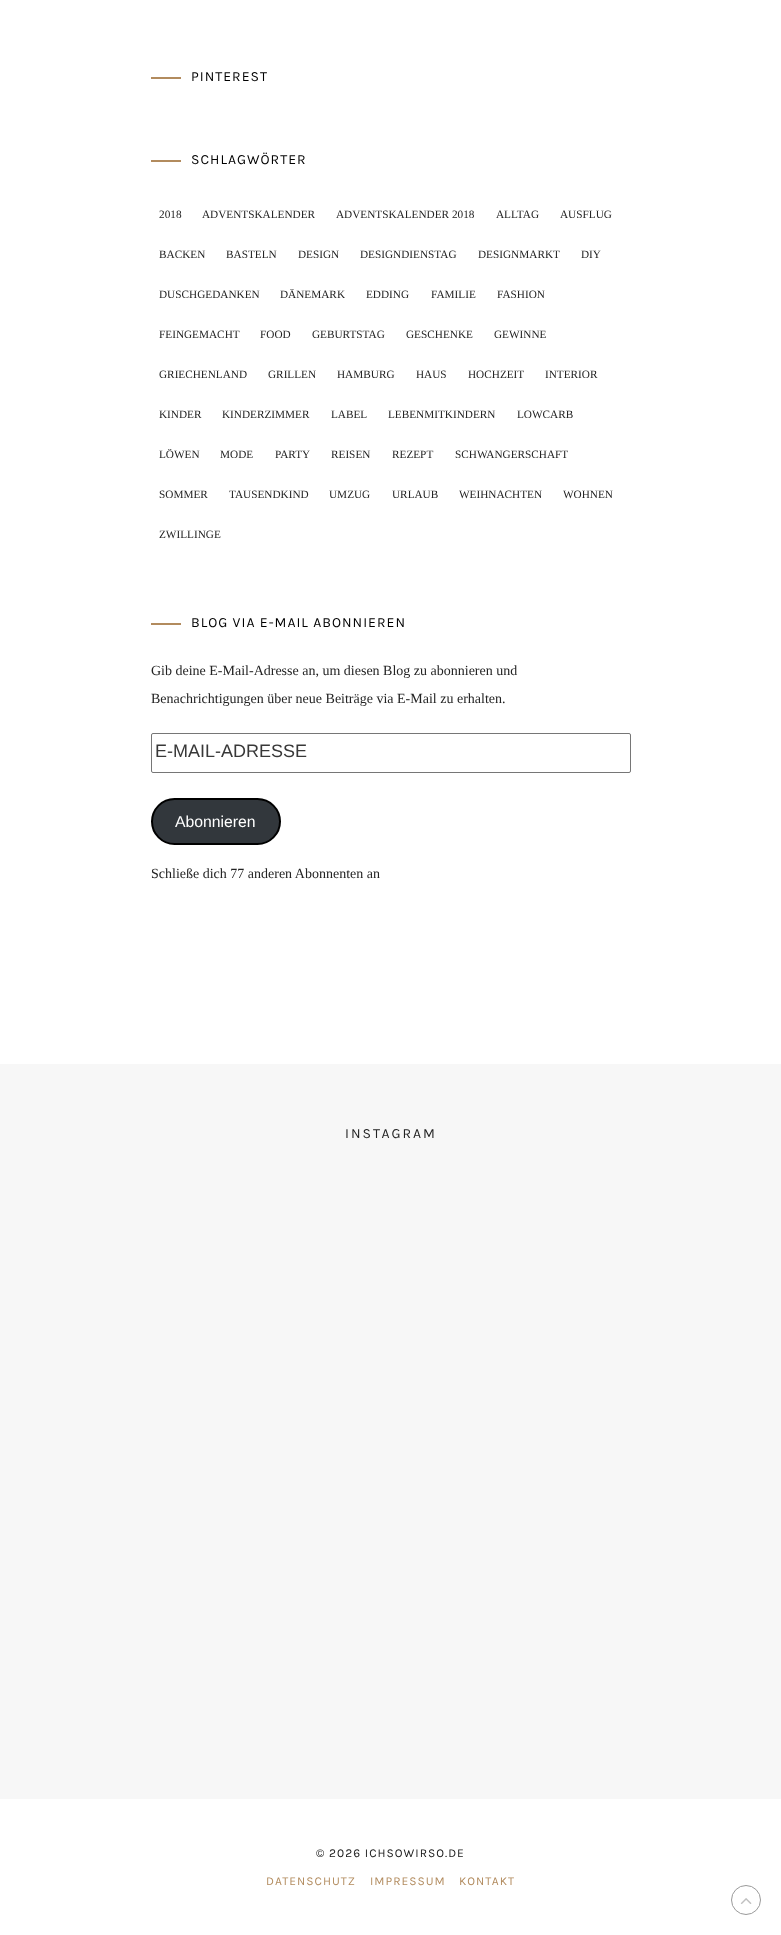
(async () => {
const canvas = document.querySelector("canvas")
canvas.width = 781
canvas.height = 1935
const c = canvas.getContext("2d")
c.miterLimit = 4
c.fontKerning = "normal"
function T(s,x,y){c.fillText(s,x,y)}
function R(x,y,w,h){c.fillRect(x,y,w,h)}
async function I(src,x,y,w,h){const img=new Image();img.src=src;await img.decode();c.drawImage(img,x,y,w,h)}
c.fillStyle="#fff"
R(0,0,781,1935)
c.fillStyle="#b28b5e"
R(151,77,30,2)
c.letterSpacing="1px"
c.font="14px Karla"
c.fillStyle="#000"
T("PINTEREST",191,81)
c.fillStyle="#b28b5e"
R(151,160,30,2)
c.fillStyle="#000"
T("SCHLAGWÖRTER",191,164)
c.letterSpacing="0px"
c.font="11.25px Liberation Serif"
c.fillStyle="#232323"
T("2018",159,218)
T("ADVENTSKALENDER",202,218)
T("ADVENTSKALENDER 2018",336,218)
T("ALLTAG",496,218)
T("AUSFLUG",560,218)
T("BACKEN",159,258)
T("BASTELN",226,258)
T("DESIGN",298,258)
T("DESIGNDIENSTAG",360,258)
T("DESIGNMARKT",478,258)
T("DIY",581,258)
T("DUSCHGEDANKEN",159,298)
T("DÄNEMARK",280,298)
T("EDDING",366,298)
T("FAMILIE",431,298)
T("FASHION",497,298)
T("FEINGEMACHT",159,338)
T("FOOD",260,338)
T("GEBURTSTAG",312,338)
T("GESCHENKE",406,338)
T("GEWINNE",494,338)
T("GRIECHENLAND",159,378)
T("GRILLEN",268,378)
T("HAMBURG",337,378)
T("HAUS",416,378)
T("HOCHZEIT",468,378)
T("INTERIOR",545,378)
T("KINDER",159,418)
T("KINDERZIMMER",222,418)
T("LABEL",331,418)
T("LEBENMITKINDERN",388,418)
T("LOWCARB",517,418)
T("LÖWEN",159,458)
T("MODE",220,458)
T("PARTY",275,458)
T("REISEN",331,458)
T("REZEPT",392,458)
T("SCHWANGERSCHAFT",455,458)
T("SOMMER",159,498)
T("TAUSENDKIND",229,498)
T("UMZUG",329,498)
T("URLAUB",392,498)
T("WEIHNACHTEN",459,498)
T("WOHNEN",563,498)
T("ZWILLINGE",159,538)
c.fillStyle="#b28b5e"
R(151,623,30,2)
c.letterSpacing="1px"
c.font="14px Karla"
c.fillStyle="#000"
T("BLOG VIA E-MAIL ABONNIEREN",191,627)
c.letterSpacing="0px"
c.font="14px Liberation Serif"
c.fillStyle="#232323"
T("Gib deine E-Mail-Adresse an, um diesen Blog zu abonnieren und",151,675)
T("Benachrichtigungen über neue Beiträge via E-Mail zu erhalten.",151,703)
c.beginPath()
c.roundRect(151.5,733.5,479,39,1.5)
c.strokeStyle="#767676"
c.stroke()
c.font="18px Liberation Sans"
c.fillStyle="#383838"
T("E-MAIL-ADRESSE",155,757)
c.fillStyle="#32373c"
c.beginPath()
c.roundRect(152,799,128,45,22.5)
c.fill()
c.strokeStyle="#000"
c.lineWidth=2
c.stroke()
c.font="15.75px Liberation Sans"
c.fillStyle="#fff"
T("Abonnieren",175,827)
c.font="14px Liberation Serif"
c.fillStyle="#232323"
T("Schließe dich 77 anderen Abonnenten an",151,878)
c.fillStyle="#f7f7f7"
R(0,1064,781,735)
c.letterSpacing="2px"
c.font="14px Karla"
c.fillStyle="#232323"
T("INSTAGRAM",345,1138)
c.letterSpacing="1px"
c.font="12px Karla"
c.fillStyle="#161616"
T("© 2026 ICHSOWIRSO.DE",316,1857)
c.fillStyle="#b28b5e"
T("DATENSCHUTZ",266,1885)
T("IMPRESSUM",370,1885)
T("KONTAKT",459,1885)
c.beginPath()
c.arc(746,1900,14.5,0,7)
c.strokeStyle="#9a9a9a"
c.lineWidth=1
c.stroke()
await I("1.png",740,1898,12,6)
})()
